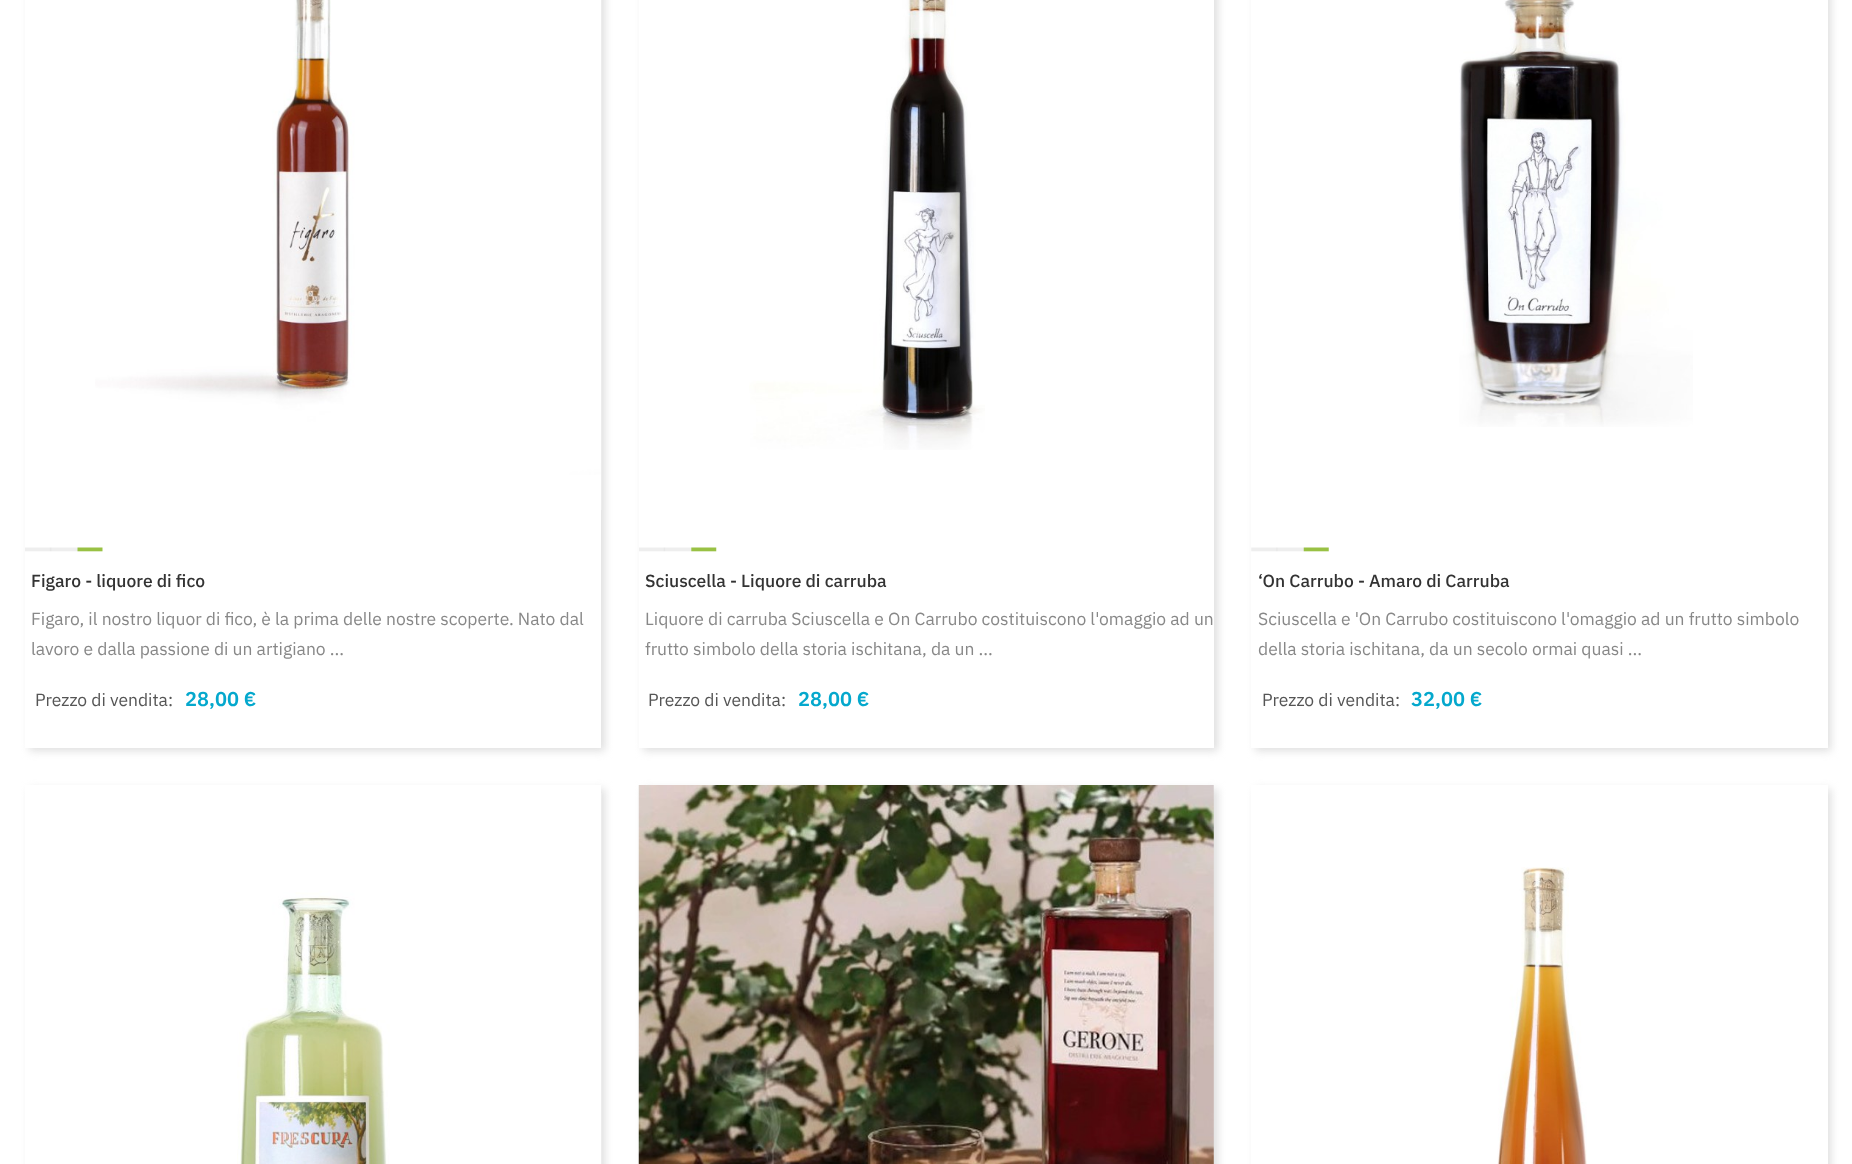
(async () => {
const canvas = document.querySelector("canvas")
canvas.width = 1852
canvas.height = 1164
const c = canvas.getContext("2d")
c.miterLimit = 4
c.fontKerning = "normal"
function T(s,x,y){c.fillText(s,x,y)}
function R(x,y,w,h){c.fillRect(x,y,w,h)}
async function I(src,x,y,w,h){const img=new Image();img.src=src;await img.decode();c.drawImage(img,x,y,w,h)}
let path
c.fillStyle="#fff"
R(0,0,1852,1164)
c.fillStyle="#dfdfdf"
c.filter="blur(4px)"
c.beginPath()
c.rect(29,-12,576,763)
c.fill()
c.filter="none"
c.fillStyle="#fff"
R(25,0,576,748)
await I("1.png",95,0,507,510)
await I("2.png",25,547,78,5)
c.font="500 17.5px IBM Plex Sans"
c.fillStyle="#333"
T("Figaro - liquore di fico",31,587)
c.font="17.5px IBM Plex Sans"
c.fillStyle="#888"
T("Figaro, il nostro liquor di fico, è la prima delle nostre scoperte. Nato dal",31,625)
T("lavoro e dalla passione di un artigiano ...",31,655)
c.fillStyle="#555"
T("Prezzo di vendita:",35,706)
c.font="600 20px IBM Plex Sans"
c.fillStyle="#04a8cd"
T("28,00 €",185,706)
c.fillStyle="#dfdfdf"
c.filter="blur(4px)"
c.beginPath()
c.rect(643,-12,575,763)
c.fill()
c.filter="none"
c.fillStyle="#fff"
R(639,0,575,748)
await I("3.png",749,0,236,450)
await I("4.png",639,547,78,5)
c.font="500 17.5px IBM Plex Sans"
c.fillStyle="#333"
T("Sciuscella - Liquore di carruba",645,587)
c.font="17.5px IBM Plex Sans"
c.fillStyle="#888"
T("Liquore di carruba Sciuscella e On Carrubo costituiscono l'omaggio ad un",645,625)
T("frutto simbolo della storia ischitana, da un ...",645,655)
c.fillStyle="#555"
T("Prezzo di vendita:",648,706)
c.font="600 20px IBM Plex Sans"
c.fillStyle="#04a8cd"
T("28,00 €",798,706)
c.fillStyle="#dfdfdf"
c.filter="blur(4px)"
c.beginPath()
c.rect(1255,-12,576,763)
c.fill()
c.filter="none"
c.fillStyle="#fff"
R(1251,0,577,748)
await I("5.png",1459,0,234,427)
await I("6.png",1251,547,78,5)
c.font="500 17.5px IBM Plex Sans"
c.fillStyle="#333"
T("‘On Carrubo - Amaro di Carruba",1258,587)
c.font="17.5px IBM Plex Sans"
c.fillStyle="#888"
T("Sciuscella e 'On Carrubo costituiscono l'omaggio ad un frutto simbolo",1258,625)
T("della storia ischitana, da un secolo ormai quasi ...",1258,655)
c.fillStyle="#555"
T("Prezzo di vendita:",1262,706)
c.font="600 20px IBM Plex Sans"
c.fillStyle="#04a8cd"
T("32,00 €",1411,706)
c.save()
path = new Path2D("M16 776h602v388h-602zm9 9h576v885h-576z")
c.clip(path,"evenodd")
c.fillStyle="#dfdfdf"
c.filter="blur(4px)"
c.beginPath()
c.rect(29,789,576,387)
c.fill()
c.filter="none"
c.restore()
await I("7.png",237,793,365,371)
c.fillStyle="#dfdfdf"
c.filter="blur(4px)"
c.beginPath()
c.rect(643,789,575,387)
c.fill()
c.filter="none"
await I("8.png",638,785,576,379)
c.filter="blur(4px)"
c.beginPath()
c.rect(1255,789,576,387)
c.fill()
c.filter="none"
c.fillStyle="#fff"
R(1251,785,577,379)
await I("9.png",1497,867,90,297)
})()
